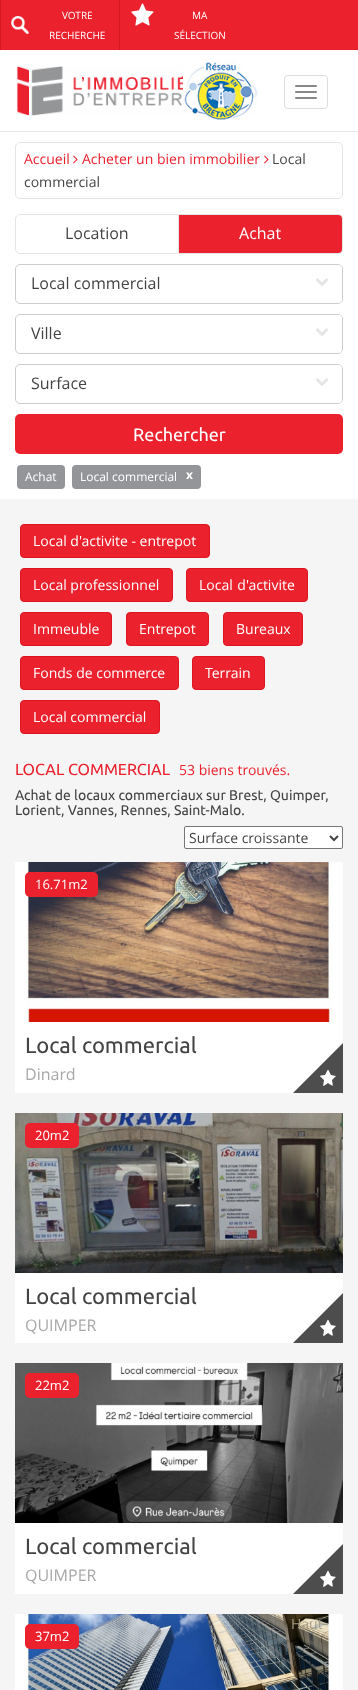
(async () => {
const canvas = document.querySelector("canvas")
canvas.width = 358
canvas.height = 1690
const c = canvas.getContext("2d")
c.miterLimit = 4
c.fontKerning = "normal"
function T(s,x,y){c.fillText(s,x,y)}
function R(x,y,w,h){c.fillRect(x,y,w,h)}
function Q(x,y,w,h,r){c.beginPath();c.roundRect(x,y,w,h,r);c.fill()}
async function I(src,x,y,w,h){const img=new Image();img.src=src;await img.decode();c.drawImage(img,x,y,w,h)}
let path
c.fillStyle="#f5f5f5"
R(0,0,358,1690)
c.fillStyle="#eb212e"
R(1,0,357,50)
c.fillStyle="#d31b1d"
R(0,0,1,50)
await I("1.png",11,16,18,18)
c.font="10px Open Sans"
c.fillStyle="#fff"
T("VOTRE",62,19)
T("RECHERCHE",49,39)
c.fillStyle="#d31b1d"
R(119,0,1,50)
await I("2.png",131,3,23,23)
c.fillStyle="#fff"
T("MA",192,19)
T("SÉLECTION",174,39)
R(0,50,358,81)
c.fillStyle="#e7e7e7"
R(0,131,358,1)
await I("3.png",16,66,167,50)
await I("4.png",183,60,75,61)
c.beginPath()
c.roundRect(284.5,75.5,43,33,3.5)
c.strokeStyle="#ddd"
c.stroke()
c.fillStyle="#888"
Q(295,85,22,2,1)
Q(295,91,22,2,1)
Q(295,97,22,2,1)
c.fillStyle="#fff"
R(0,132,358,367)
c.beginPath()
c.roundRect(15.5,142.5,327,56,4.5)
c.strokeStyle="#e5e5e5"
c.stroke()
c.font="14px Open Sans"
c.fillStyle="#eb212e"
T("Accueil",24,164)
await I("5.png",73,155,5,9)
T("Acheter un bien immobilier",82,164)
await I("5.png",264,155,5,9)
c.fillStyle="#444"
T("Local",272,164)
T("commercial",24,187)
c.beginPath()
c.roundRect(15.5,214.5,163,39,[4.5,0,0,4.5])
c.stroke()
c.font="16px Open Sans"
T("Location",65,239)
c.fillStyle="#e5e5e5"
path = new Path2D("M179 214h159c3 0 5 2 5 5v30c0 3-2 5-5 5h-159zm0 1h159c2 0 4 2 4 4v30c0 2-2 4-4 4h-159z")
c.fill(path,"evenodd")
c.fillStyle="#eb212e"
c.beginPath()
c.roundRect(179,215,163,38,[0,4,4,0])
c.fill()
c.fillStyle="#fff"
T("Achat",239,239)
c.beginPath()
c.roundRect(15.5,264.5,327,39,4.5)
c.strokeStyle="#ccc"
c.stroke()
c.fillStyle="#444"
T("Local commercial",31,289)
c.fillStyle="#fff"
c.beginPath()
c.roundRect(302,265,40,38,[0,4,4,0])
c.fill()
await I("6.png",316,278,12,8)
c.beginPath()
c.roundRect(15.5,314.5,327,39,4.5)
c.stroke()
c.fillStyle="#444"
T("Ville",31,339)
c.fillStyle="#fff"
c.beginPath()
c.roundRect(302,315,40,38,[0,4,4,0])
c.fill()
await I("6.png",316,328,12,8)
c.beginPath()
c.roundRect(15.5,364.5,327,39,4.5)
c.stroke()
c.fillStyle="#444"
T("Surface",31,389)
c.fillStyle="#fff"
c.beginPath()
c.roundRect(302,365,40,38,[0,4,4,0])
c.fill()
await I("6.png",316,378,12,8)
c.fillStyle="#eb212e"
Q(15,414,328,40,5)
c.font="18px Ubuntu"
c.fillStyle="#fff"
T("Rechercher",133,441)
c.fillStyle="#949599"
Q(17,465,48,24,4)
c.font="12px Open Sans"
c.fillStyle="#fff"
T("Achat",25,481)
c.fillStyle="#949599"
Q(72,465,129,24,4)
c.fillStyle="#fff"
T("Local commercial",80,481)
c.font="bold 12px Open Sans"
T("x",186,479)
c.fillStyle="#eb212e"
c.beginPath()
c.roundRect(20.5,524.5,189,33,3.5)
c.fill()
c.strokeStyle="#de1421"
c.stroke()
c.font="14px Open Sans"
c.fillStyle="#fff"
T("Local d'activite - entrepot",33,546)
c.fillStyle="#eb212e"
c.beginPath()
c.roundRect(20.5,568.5,152,33,3.5)
c.fill()
c.stroke()
c.fillStyle="#fff"
T("Local professionnel",33,590)
c.fillStyle="#eb212e"
c.beginPath()
c.roundRect(186.5,568.5,121,33,3.5)
c.fill()
c.stroke()
c.wordSpacing="1px"
c.fillStyle="#fff"
T("Local d'activite",199,590)
c.fillStyle="#eb212e"
c.beginPath()
c.roundRect(20.5,612.5,91,33,3.5)
c.fill()
c.stroke()
c.wordSpacing="0px"
c.fillStyle="#fff"
T("Immeuble",33,634)
c.fillStyle="#eb212e"
c.beginPath()
c.roundRect(126.5,612.5,82,33,3.5)
c.fill()
c.stroke()
c.fillStyle="#fff"
T("Entrepot",139,634)
c.fillStyle="#eb212e"
c.beginPath()
c.roundRect(223.5,612.5,79,33,3.5)
c.fill()
c.stroke()
c.fillStyle="#fff"
T("Bureaux",236,634)
c.fillStyle="#eb212e"
c.beginPath()
c.roundRect(20.5,656.5,158,33,3.5)
c.fill()
c.stroke()
c.fillStyle="#fff"
T("Fonds de commerce",33,678)
c.fillStyle="#eb212e"
c.beginPath()
c.roundRect(192.5,656.5,72,33,3.5)
c.fill()
c.stroke()
c.fillStyle="#fff"
T("Terrain",205,678)
c.fillStyle="#eb212e"
c.beginPath()
c.roundRect(20.5,700.5,139,33,3.5)
c.fill()
c.stroke()
c.fillStyle="#fff"
T("Local commercial",33,722)
c.font="16px Ubuntu"
c.fillStyle="#eb212e"
T("LOCAL COMMERCIAL",15,775)
c.font="14px Open Sans"
T("53 biens trouvés.",179,775)
c.font="14px Ubuntu"
c.fillStyle="#444"
T("Achat de locaux commerciaux sur Brest, Quimper,",15,800)
T("Lorient, Vannes, Rennes, Saint-Malo.",15,815)
c.fillStyle="#fff"
c.beginPath()
c.roundRect(184.5,826.5,158,22,1.5)
c.fill()
c.strokeStyle="#767676"
c.stroke()
path = new Path2D("M330 836l4 4l4-4")
c.strokeStyle="#444"
c.lineWidth=2
c.stroke(path)
c.font="14px Open Sans"
c.fillStyle="#444"
T("Surface croissante",189,843)
c.fillStyle="#fff"
R(15,862,328,231)
await I("7.png",26,862,306,160)
c.fillStyle="#eb212e"
Q(25,872,73,25,5)
c.font="13px Open Sans"
c.fillStyle="#fff"
T("16.71m2",35,889)
c.font="22px Ubuntu"
c.fillStyle="#444"
T("Local commercial",25,1053)
c.fillStyle="#4d4d4d"
path = new Path2D("M343 1043v50h-50zm-7 33l-5-1c-4-7-2-7-6 0c-7 1-6 0-1 5c-1 8-2 7 4 3c6 4 5 4 4-3z")
c.fill(path,"evenodd")
c.font="16px Open Sans"
c.fillStyle="#a8a8a8"
T("Dinard",25,1080)
c.fillStyle="#fff"
R(15,1273,328,70)
await I("8.png",15,1113,328,160)
c.fillStyle="#eb212e"
Q(25,1123,54,25,5)
c.font="13px Open Sans"
c.fillStyle="#fff"
T("20m2",35,1140)
c.font="22px Ubuntu"
c.fillStyle="#444"
T("Local commercial",25,1304)
c.fillStyle="#4d4d4d"
path = new Path2D("M343 1293v50h-50zm-7 33l-5-1c-4-7-2-7-6 0c-7 1-6 0-1 5c-1 8-2 7 4 3c6 4 5 4 4-3z")
c.fill(path,"evenodd")
c.font="16px Open Sans"
c.fillStyle="#a8a8a8"
T("QUIMPER",25,1331)
c.fillStyle="#fff"
R(15,1523,328,71)
await I("9.png",15,1363,328,160)
c.fillStyle="#eb212e"
Q(25,1373,54,25,5)
c.font="13px Open Sans"
c.fillStyle="#fff"
T("22m2",35,1390)
c.font="22px Ubuntu"
c.fillStyle="#444"
T("Local commercial",25,1554)
c.fillStyle="#4d4d4d"
path = new Path2D("M343 1544v50h-50zm-7 33l-5-1c-4-7-2-7-6 0c-7 1-6 0-1 5c-1 8-2 7 4 3c6 4 5 4 4-3z")
c.fill(path,"evenodd")
c.font="16px Open Sans"
c.fillStyle="#a8a8a8"
T("QUIMPER",25,1581)
c.fillStyle="#fff"
R(15,1614,328,76)
await I("10.png",26,1614,304,76)
c.fillStyle="#eb212e"
Q(25,1624,54,25,5)
c.font="13px Open Sans"
c.fillStyle="#fff"
T("37m2",35,1641)
c.font="14px Open Sans"
c.fillStyle="#a59c85"
T("Haut",291,1629)
})()
